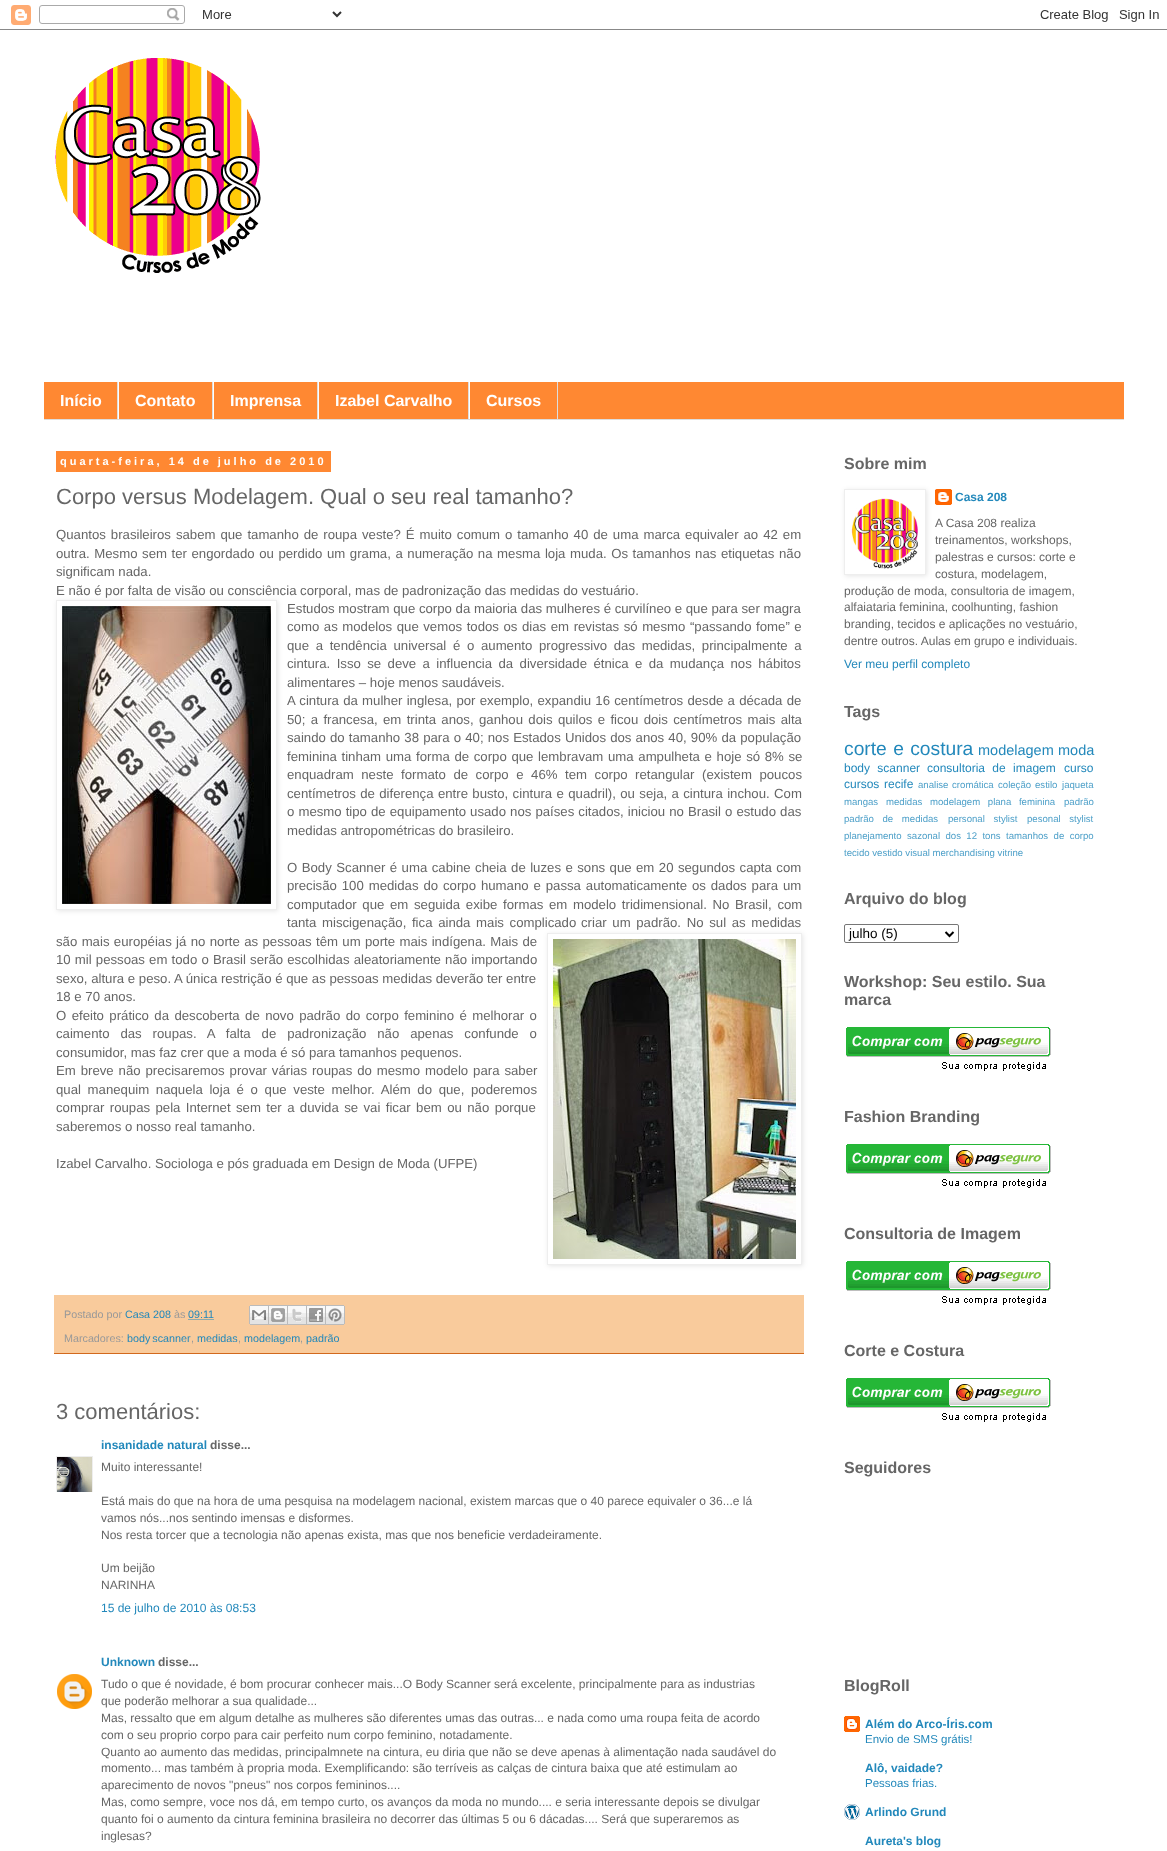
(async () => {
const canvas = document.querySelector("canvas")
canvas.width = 1167
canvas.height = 1851
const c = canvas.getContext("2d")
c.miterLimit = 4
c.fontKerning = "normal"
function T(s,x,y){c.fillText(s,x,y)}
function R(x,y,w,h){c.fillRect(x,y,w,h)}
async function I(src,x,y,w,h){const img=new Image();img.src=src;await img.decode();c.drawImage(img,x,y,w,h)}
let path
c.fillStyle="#fff"
R(0,0,1167,1851)
await I("1.png",0,5,1167,25)
await I("2.png",55,58,206,215)
c.fillStyle="#ff8832"
R(44,382,1080,37)
c.fillStyle="#ddd"
R(44,419,1080,1)
R(117,382,1,37)
c.font="bold 16px Liberation Sans"
c.fillStyle="#fff"
T("Início",60,406)
c.fillStyle="#ddd"
R(212,382,1,37)
c.fillStyle="#fff"
R(118,382,1,37)
T("Contato",135,406)
c.fillStyle="#ddd"
R(317,382,1,37)
c.fillStyle="#fff"
R(213,382,1,37)
T("Imprensa",230,406)
c.fillStyle="#ddd"
R(468,382,1,37)
c.fillStyle="#fff"
R(318,382,1,37)
T("Izabel Carvalho",335,406)
c.fillStyle="#ddd"
R(557,382,1,37)
c.fillStyle="#fff"
R(469,382,1,37)
T("Cursos",486,406)
c.fillStyle="#ff8832"
R(56,451,275,21)
c.letterSpacing="3px"
c.font="bold 11px Liberation Sans"
c.fillStyle="#fff"
T("quarta-feira, 14 de julho de 2010",60,465)
c.letterSpacing="0px"
c.font="22px Liberation Sans"
c.fillStyle="#666"
T("Corpo versus Modelagem. Qual o seu real tamanho?",56,504)
c.wordSpacing="1.3px"
c.font="13.2px Liberation Sans"
T("Quantos brasileiros sabem que tamanho de roupa veste? É muito comum o tamanho 40 de uma marca equivaler ao 42 em",56,539)
c.wordSpacing="0.9px"
T("outra. Mesmo sem ter engordado ou perdido um grama, a numeração na mesma loja muda. Os tamanhos nas etiquetas não",56,558)
c.wordSpacing="0px"
T("significam nada.",56,576)
T("E não é por falta de visão ou consciência corporal, mas de padronização das medidas do vestuário.",56,595)
c.save()
path = new Path2D("M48 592h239v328h-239zm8 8h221v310h-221z")
c.clip(path,"evenodd")
c.fillStyle="#0000001a"
c.filter="blur(2.5px)"
c.beginPath()
c.rect(57,601,221,310)
c.fill()
c.filter="none"
c.restore()
c.strokeStyle="#eee"
c.strokeRect(56.5,600.5,220,309)
await I("3.png",62,606,209,298)
T("Estudos mostram que corpo da maioria das mulheres é curvilíneo e que para ser magra",287,613)
c.wordSpacing="0.9px"
T("como as modelos que vemos todos os dias em revistas só mesmo “passando fome” e",287,631)
c.wordSpacing="3px"
T("que a tendência universal é o aumento progressivo das medidas, principalmente a",287,650)
c.wordSpacing="2.75px"
T("cintura. Isso se deve a influencia da diversidade étnica e da mudança nos hábitos",287,668)
c.wordSpacing="0px"
T("alimentares – hoje menos saudáveis.",287,687)
c.wordSpacing="0.6px"
T("A cintura da mulher inglesa, por exemplo, expandiu 16 centímetros desde a década de",287,705)
c.wordSpacing="1.7px"
T("50; a francesa, em trinta anos, ganhou dois quilos e ficou dois centímetros mais alta",287,724)
c.wordSpacing="0.5px"
T("saindo do tamanho 38 para o 40; nos Estados Unidos dos anos 40, 90% da população",287,742)
c.wordSpacing="1px"
T("feminina tinham uma forma de corpo que lembravam uma ampulheta e hoje só 8% se",287,761)
c.wordSpacing="3.9px"
T("enquadram neste formato de corpo e 46% tem corpo retangular (existem poucos",287,779)
c.wordSpacing="0.7px"
T("centímetros de diferença entre busto, cintura e quadril), ou seja, a cintura inchou. Com",287,798)
c.wordSpacing="0.4px"
T("o mesmo tipo de equipamento usado nos países citados, iniciou no Brasil o estudo das",287,816)
c.wordSpacing="0px"
T("medidas antropométricas do brasileiro.",287,835)
c.wordSpacing="0.8px"
T("O Body Scanner é uma cabine cheia de luzes e sons que em 20 segundos capta com",287,872)
c.wordSpacing="1.25px"
T("precisão 100 medidas do corpo humano e passa automaticamente os dados para um",287,890)
c.wordSpacing="2px"
T("computador que em seguida exibe formas em modelo tridimensional. No Brasil, com",287,909)
T("tanta miscigenação, fica ainda mais complicado",287,927)
T("criar um padrão. No sul as medidas",581,927)
c.wordSpacing="0.7px"
T("são mais européias já no norte as pessoas têm um porte mais indígena. Mais de",56,946)
c.save()
path = new Path2D("M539 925h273v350h-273zm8 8h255v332h-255z")
c.clip(path,"evenodd")
c.fillStyle="#0000001a"
c.filter="blur(2.5px)"
c.beginPath()
c.rect(548,934,255,332)
c.fill()
c.filter="none"
c.restore()
c.strokeRect(547.5,933.5,254,331)
await I("4.png",553,939,243,320)
c.wordSpacing="0.5px"
T("10 mil pessoas em todo o Brasil serão escolhidas aleatoriamente não importando",56,964)
c.wordSpacing="0px"
T("sexo, altura e peso. A única restrição é que as pessoas medidas deverão ter entre",56,983)
T("18 e 70 anos.",56,1001)
c.wordSpacing="1.75px"
T("O efeito prático da descoberta de novo padrão do corpo feminino é melhorar o",56,1020)
c.wordSpacing="7.25px"
T("caimento das roupas. A falta de padronização não apenas confunde o",56,1038)
c.wordSpacing="0px"
T("consumidor, mas faz crer que a moda é só para tamanhos pequenos.",56,1057)
c.wordSpacing="1.25px"
T("Em breve não precisaremos provar várias roupas do mesmo modelo para saber",56,1075)
c.wordSpacing="3px"
T("qual manequim naquela loja é o que veste melhor. Além do que, poderemos",56,1094)
c.wordSpacing="1.75px"
T("comprar roupas pela Internet sem ter a duvida se vai ficar bem ou não porque",56,1112)
c.wordSpacing="0px"
T("saberemos o nosso real tamanho.",56,1131)
T("Izabel Carvalho. Sociologa e pós graduada em Design de Moda (UFPE)",56,1168)
c.fillStyle="#f9cb9c"
R(54,1295,750,58)
c.fillStyle="#d2691d"
R(54,1353,750,1)
c.font="10.75px Liberation Sans"
c.fillStyle="#999"
T("Postado por",64,1318)
c.fillStyle="#28b"
T("Casa 208",125,1318)
c.fillStyle="#999"
T("às",174,1318)
c.fillStyle="#28b"
T("09:11",188,1318)
path = new Path2D("M188.5 1319.5h26")
c.strokeStyle="#28b"
c.setLineDash([1,1])
c.stroke(path)
await I("5.png",249,1305,20,20)
await I("6.png",269,1305,19,20)
await I("7.png",288,1305,19,20)
await I("8.png",307,1305,19,20)
await I("9.png",326,1305,19,20)
c.fillStyle="#999"
T("Marcadores:",64,1342)
c.wordSpacing="-1px"
c.fillStyle="#28b"
T("body scanner",127,1342)
c.wordSpacing="0px"
c.fillStyle="#999"
T(",",191,1342)
c.fillStyle="#28b"
T("medidas",197,1342)
c.fillStyle="#999"
T(",",238,1342)
c.fillStyle="#28b"
T("modelagem",244,1342)
c.fillStyle="#999"
T(",",300,1342)
c.fillStyle="#28b"
T("padrão",306,1342)
c.font="22px Liberation Sans"
c.fillStyle="#666"
T("3 comentários:",56,1419)
c.font="bold 12px Liberation Sans"
c.fillStyle="#28b"
T("insanidade natural",101,1449)
c.fillStyle="#666"
T("disse...",210,1449)
c.save()
c.beginPath()
c.rect(56,1456,37,36)
c.clip()
c.strokeStyle="#eee"
c.setLineDash([])
c.strokeRect(56.5,1456.5,36,36)
c.restore()
await I("10.png",57,1457,35,35)
c.font="12px Liberation Sans"
T("Muito interessante!",101,1471)
T("Está mais do que na hora de uma pesquisa na modelagem nacional, existem marcas que o 40 parece equivaler o 36...e lá",101,1505)
T("vamos nós...nos sentindo imensas e disformes.",101,1522)
T("Nos resta torcer que a tecnologia não apenas exista, mas que nos beneficie verdadeiramente.",101,1539)
T("Um beijão",101,1572)
T("NARINHA",101,1589)
c.fillStyle="#28b"
T("15 de julho de 2010 às 08:53",101,1612)
c.font="bold 12px Liberation Sans"
T("Unknown",101,1666)
c.fillStyle="#666"
T("disse...",158,1666)
await I("11.png",57,1674,35,35)
c.font="12px Liberation Sans"
T("Tudo o que é novidade, é bom procurar conhecer mais...O Body Scanner será excelente, principalmente para as industrias",101,1688)
T("que poderão melhorar a sua qualidade...",101,1705)
T("Mas, ressalto que em algum detalhe as mulheres são diferentes umas das outras... e nada como uma roupa feita de acordo",101,1722)
T("com o seu proprio corpo para cair perfeito num corpo feminino, notadamente.",101,1739)
T("Quanto ao aumento das medidas, principalmnete na cintura, eu diria que não se deve apenas à alimentação nada saudável do",101,1756)
T("momento... mas também à propria moda. Exemplificando: são terríveis as calças de cintura baixa que até estimulam ao",101,1772)
T("aparecimento de novos \"pneus\" nos corpos femininos....",101,1789)
T("Mas, como sempre, voce nos dá, em tempo curto, os avanços da moda no mundo.... e seria interessante depois se divulgar",101,1806)
T("quanto foi o aumento da cintura feminina brasileira no decorrer das últimas 5 ou 6 dácadas.... Será que superaremos as",101,1823)
T("inglesas?",101,1840)
c.font="bold 16px Liberation Sans"
T("Sobre mim",844,469)
await I("13.png",935,489,17,16)
c.save()
path = new Path2D("M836 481h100v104h-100zm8 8h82v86h-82z")
c.clip(path,"evenodd")
c.fillStyle="#0000001a"
c.filter="blur(2.5px)"
c.beginPath()
c.rect(845,490,82,86)
c.fill()
c.filter="none"
c.restore()
c.strokeStyle="#eee"
c.setLineDash([])
c.strokeRect(844.5,489.5,81,85)
await I("12.png",851,498,67,71)
c.font="bold 12px Liberation Sans"
c.fillStyle="#28b"
T("Casa 208",955,501)
c.font="12px Liberation Sans"
c.fillStyle="#666"
T("A Casa 208 realiza",935,527)
T("treinamentos, workshops,",935,544)
T("palestras e cursos: corte e",935,561)
T("costura, modelagem,",935,578)
T("produção de moda, consultoria de imagem,",844,595)
T("alfaiataria feminina, coolhunting, fashion",844,611)
T("branding, tecidos e aplicações no vestuário,",844,628)
T("dentre outros. Aulas em grupo e individuais.",844,645)
c.fillStyle="#28b"
T("Ver meu perfil completo",844,668)
c.font="bold 16px Liberation Sans"
c.fillStyle="#666"
T("Tags",844,717)
c.wordSpacing="1px"
c.font="19.25px Liberation Sans"
c.fillStyle="#28b"
T("corte e costura",844,755)
c.wordSpacing="0px"
c.font="14.5px Liberation Sans"
T("modelagem",978,755)
T("moda",1058,755)
c.wordSpacing="4px"
c.font="12px Liberation Sans"
T("body scanner",844,772)
T("consultoria de imagem",927,772)
c.wordSpacing="0px"
T("curso",1064,772)
T("cursos",844,788)
T("recife",884,788)
c.wordSpacing="1px"
c.font="9.6px Liberation Sans"
c.fillStyle="#4ea0c9"
T("analise cromática",918,788)
c.wordSpacing="0px"
T("coleção",998,788)
T("estilo",1035,788)
T("jaqueta",1062,788)
T("mangas",844,805)
T("medidas",886,805)
c.wordSpacing="5px"
T("modelagem plana feminina",930,805)
c.wordSpacing="0px"
T("padrão",1064,805)
c.wordSpacing="6px"
T("padrão de medidas",844,822)
T("personal stylist",948,822)
T("pesonal stylist",1027,822)
c.wordSpacing="0px"
T("planejamento",844,839)
c.wordSpacing="2.75px"
T("sazonal dos 12 tons",907,839)
T("tamanhos de corpo",1006,839)
c.wordSpacing="0px"
T("tecido vestido visual merchandising vitrine",844,856)
c.font="bold 16px Liberation Sans"
c.fillStyle="#666"
T("Arquivo do blog",844,904)
c.beginPath()
c.roundRect(844.5,924.5,114,18,1.5)
c.strokeStyle="#767676"
c.stroke()
path = new Path2D("M945.5 932l4 4l4-4")
c.strokeStyle="#000"
c.lineWidth=2
c.stroke(path)
c.font="13.5px Liberation Sans"
c.fillStyle="#000"
T("julho (5)",849,938)
c.font="bold 16px Liberation Sans"
c.fillStyle="#666"
T("Workshop: Seu estilo. Sua",844,987)
T("marca",844,1005)
await I("14.png",846,1027,205,44)
T("Fashion Branding",844,1122)
await I("14.png",846,1144,205,44)
T("Consultoria de Imagem",844,1239)
await I("14.png",846,1261,205,44)
T("Corte e Costura",844,1356)
await I("14.png",846,1378,205,44)
T("Seguidores",844,1473)
T("BlogRoll",844,1691)
await I("15.png",844,1716,16,16)
c.font="bold 12px Liberation Sans"
c.fillStyle="#28b"
T("Além do Arco-Íris.com",865,1728)
c.font="11.5px Liberation Sans"
T("Envio de SMS grátis!",865,1743)
c.font="bold 12px Liberation Sans"
T("Alô, vaidade?",865,1772)
c.font="11.5px Liberation Sans"
T("Pessoas frias.",865,1787)
await I("16.png",844,1804,16,16)
c.font="bold 12px Liberation Sans"
T("Arlindo Grund",865,1816)
T("Aureta's blog",865,1845)
})()
